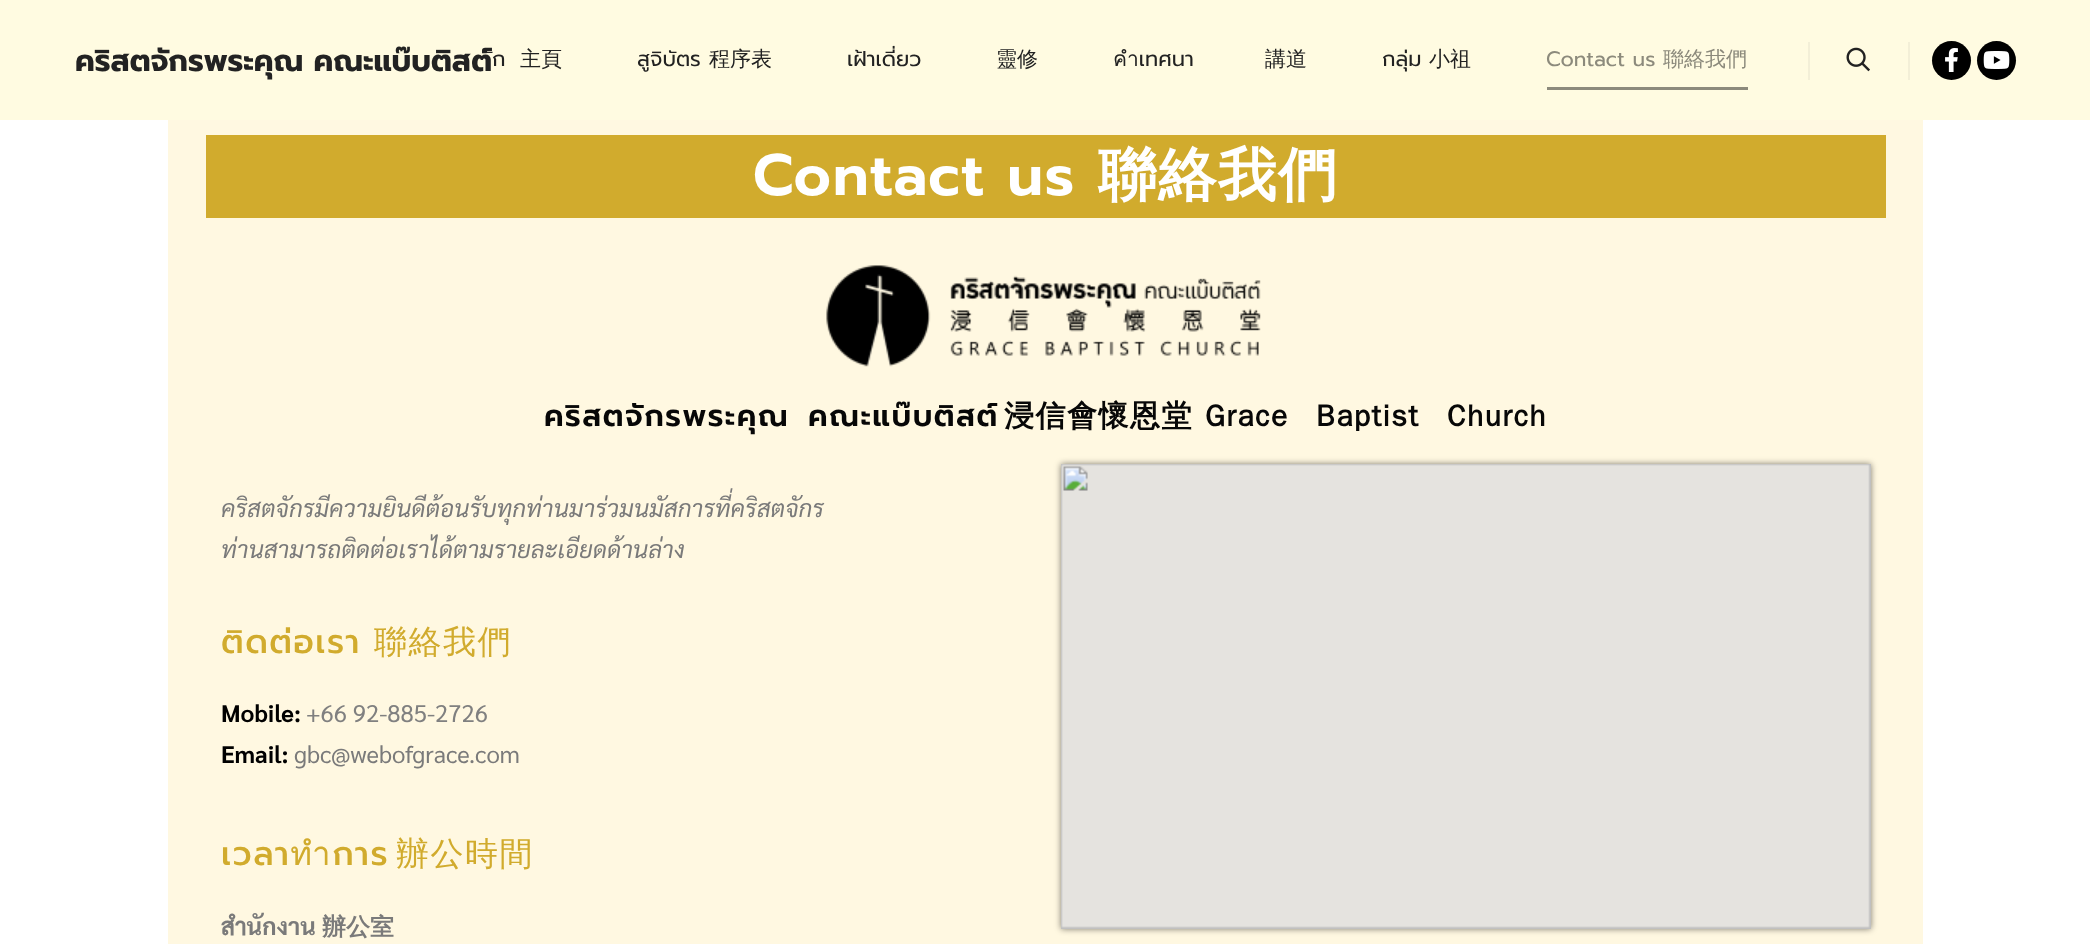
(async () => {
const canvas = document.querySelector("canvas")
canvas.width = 2090
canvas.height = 944
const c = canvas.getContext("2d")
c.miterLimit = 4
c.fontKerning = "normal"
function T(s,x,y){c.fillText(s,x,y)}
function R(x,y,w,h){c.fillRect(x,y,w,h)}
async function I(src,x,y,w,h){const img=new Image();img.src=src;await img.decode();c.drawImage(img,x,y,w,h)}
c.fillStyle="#fff"
R(0,0,2090,944)
c.fillStyle="#fffbe1"
R(0,0,2090,120)
c.font="bold 30px Prompt"
c.fillStyle="#222"
T("คริสตจักรพระคุณ คณะแบ๊บติสต์",75,71)
c.font="21px Prompt"
T("ัก",492,66)
c.font="500 21px WenQuanYi Zen Hei"
T("主頁",520,66)
c.font="21px Prompt"
T("สูจิบัตร",637,66)
c.font="500 21px WenQuanYi Zen Hei"
T("程序表",709,66)
c.font="21px Prompt"
T("เฝ้าเดี่ยว",847,66)
c.font="500 21px WenQuanYi Zen Hei"
T("靈修",996,66)
c.font="21px Prompt"
T("คำเทศนา",1113,66)
c.font="500 21px WenQuanYi Zen Hei"
T("講道",1265,66)
c.font="21px Prompt"
T("กลุ่ม",1382,66)
c.font="500 21px WenQuanYi Zen Hei"
T("小祖",1429,66)
c.font="21px Prompt"
c.fillStyle="#8c8a7c"
T("Contact us",1546,66)
c.font="500 21px WenQuanYi Zen Hei"
T("聯絡我們",1663,66)
R(1547,87,201,3)
c.fillStyle="#f3efd7"
R(1808,42,2,38)
await I("1.png",1846,47,24,25)
R(1908,42,2,38)
c.fillStyle="#000"
c.beginPath()
c.arc(1951.5,60.5,19.5,0,7)
c.fill()
await I("2.png",1945,48,13,24)
c.beginPath()
c.arc(1996.5,60.5,19.5,0,7)
c.fill()
await I("3.png",1983,51,27,18)
c.fillStyle="#fff8e1"
R(168,120,1755,824)
c.fillStyle="#d1ab2d"
R(206,135,1680,83)
c.letterSpacing="1.5px"
c.font="600 58.5px Prompt"
c.fillStyle="#fff"
T("Contact us",753,195)
c.font="bold 58.5px WenQuanYi Zen Hei"
T("聯絡我們",1098,195)
await I("4.png",826,265,435,102)
c.font="600 30px Prompt"
c.fillStyle="#070707"
T("คริสตจักรพระคุณ",544,426)
T("คณะแบ๊บติสต์",808,426)
c.font="bold 30px WenQuanYi Zen Hei"
T("浸信會懷恩堂",1004,426)
c.wordSpacing="17px"
T("Grace Baptist Church",1205,426)
c.letterSpacing="0px"
c.wordSpacing="0px"
c.font="italic 24px Sarabun"
c.fillStyle="#7a7a7a"
T("คริสตจักรมีความยินดีต้อนรับทุกท่านมาร่วมนมัสการที่คริสตจักร",221,517)
T("ท่านสามารถติดต่อเราได้ตามรายละเอียดด้านล่าง",221,558)
c.letterSpacing="1.5px"
c.font="500 33px Prompt"
c.fillStyle="#d1ab2d"
T("ติดต่อเรา",221,653)
c.font="500 33px WenQuanYi Zen Hei"
T("聯絡我們",374,653)
c.letterSpacing="0px"
c.font="bold 24px Sarabun"
c.fillStyle="#000"
T("Mobile:",221,722)
c.font="24px Sarabun"
c.fillStyle="#808080"
T("+66 92-885-2726",306,722)
c.font="bold 24px Sarabun"
c.fillStyle="#000"
T("Email:",221,763)
c.font="24px Sarabun"
c.fillStyle="#7a7a7a"
T("gbc@webofgrace.com",294,763)
c.letterSpacing="1.5px"
c.font="500 33px Prompt"
c.fillStyle="#d1ab2d"
T("เวลาทำการ",221,865)
c.font="500 33px WenQuanYi Zen Hei"
T("辦公時間",396,865)
c.letterSpacing="0px"
c.font="bold 24px Sarabun"
c.fillStyle="#7a7a7a"
T("สำนักงาน",221,935)
c.font="bold 24px WenQuanYi Zen Hei"
T("辦公室",322,935)
c.fillStyle="#00000080"
c.filter="blur(3px)"
c.beginPath()
c.rect(1061,464,810,465)
c.fill()
c.filter="none"
await I("5.png",1061,464,810,465)
})()
